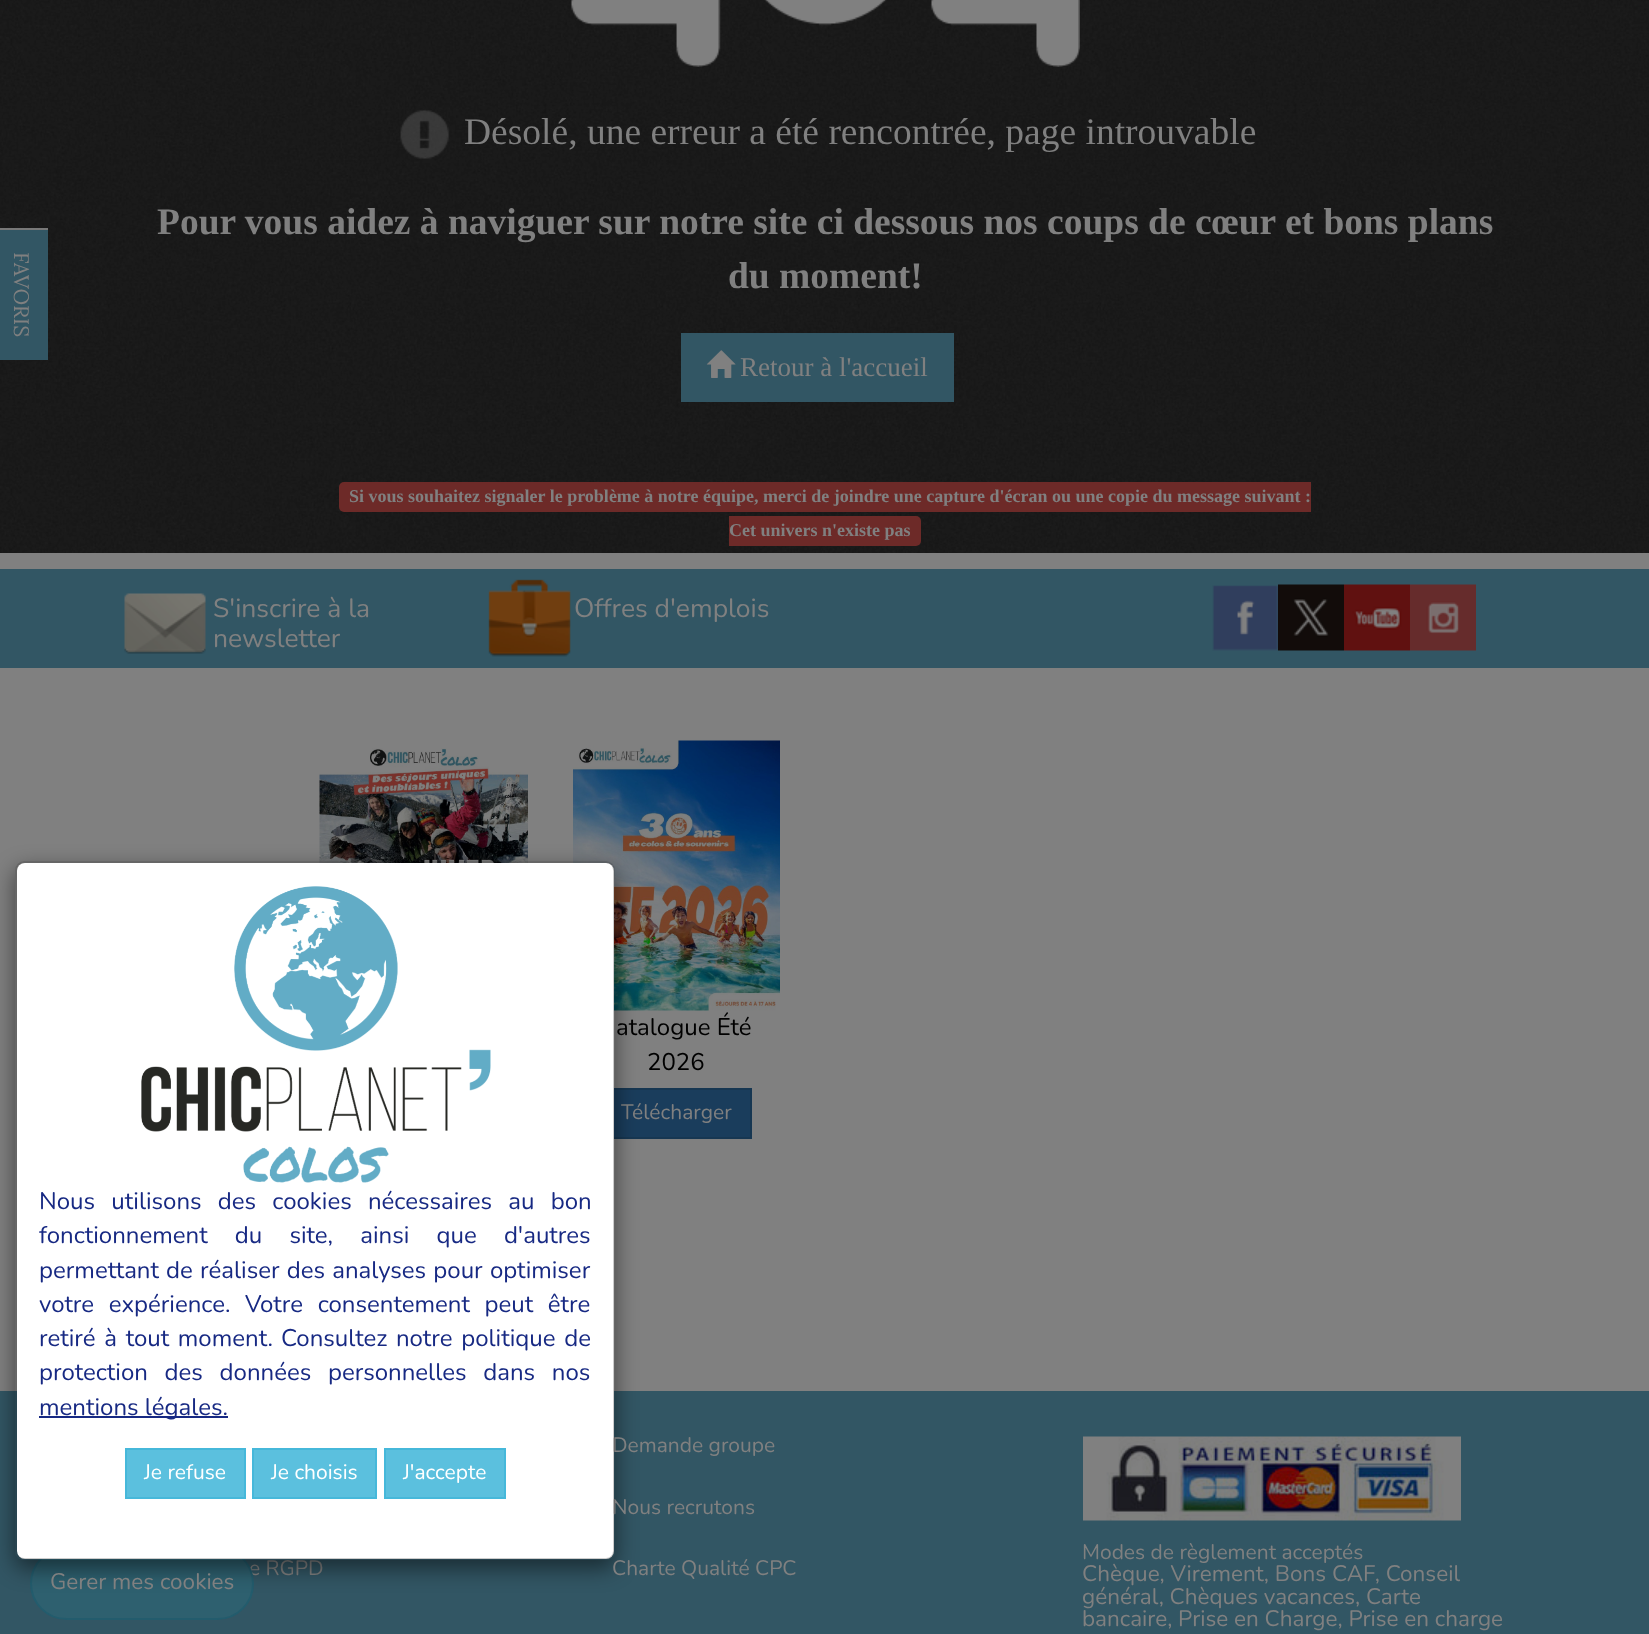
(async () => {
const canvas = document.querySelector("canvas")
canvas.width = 1649
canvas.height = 1634
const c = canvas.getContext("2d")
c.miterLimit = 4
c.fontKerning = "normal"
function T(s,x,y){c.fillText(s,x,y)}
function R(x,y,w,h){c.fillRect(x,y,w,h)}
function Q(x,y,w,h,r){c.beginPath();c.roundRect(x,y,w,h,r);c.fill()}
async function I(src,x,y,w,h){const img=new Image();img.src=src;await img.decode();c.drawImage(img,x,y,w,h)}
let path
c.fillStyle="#808080"
R(0,0,1649,1634)
await I("1.png",0,0,1649,553)
c.fillStyle="#325664"
R(0,230,48,130)
c.fillStyle="#787878"
R(0,228,48,2)
c.font="21px Lora"
c.fillStyle="#808080"
c.save()
c.translate(14,252)
c.rotate(90 * Math.PI / 180)
c.fillText("FAVORIS",0,0)
c.restore()
await I("2.png",571,0,509,67)
await I("3.png",400,110,49,49)
c.font="37.5px Liberation Serif"
T("Désolé, une erreur a été rencontrée, page introuvable",464,144)
c.font="bold 37.5px Liberation Serif"
T("Pour vous aidez à naviguer sur notre site ci dessous nos coups de cœur et bons plans",157,234)
T("du moment!",728,288)
c.fillStyle="#325664"
R(681,333,273,69)
await I("4.png",706,350,30,28)
c.font="27px Liberation Serif"
c.fillStyle="#808080"
T("Retour à l'accueil",740,376)
c.fillStyle="#6d2a28"
c.beginPath()
c.roundRect(339,482,972,30,[5,0,0,5])
c.fill()
c.font="bold 18px Liberation Serif"
c.fillStyle="#808080"
T("Si vous souhaitez signaler le problème à notre équipe, merci de joindre une capture d'écran ou une copie du message suivant :",349,502)
c.fillStyle="#6d2a28"
c.beginPath()
c.roundRect(729,516,192,30,[0,5,5,0])
c.fill()
c.fillStyle="#808080"
T("Cet univers n'existe pas",729,536)
c.fillStyle="#325664"
R(0,569,1649,99)
await I("5.png",124,593,82,61)
c.font="26.5px Nunito"
c.fillStyle="#808080"
T("S'inscrire à la",213,617)
T("newsletter",213,647)
await I("6.png",488,579,83,78)
T("Offres d'emplois",574,617)
await I("7.png",1212,585,66,66)
await I("8.png",1278,584,66,67)
await I("9.png",1344,584,66,67)
await I("10.png",1410,584,66,67)
await I("11.png",319,748,209,115)
await I("12.png",573,740,207,271)
c.font="24px Nunito"
c.fillStyle="#000"
T("atalogue Été",616,1035)
T("2026",647,1070)
c.fillStyle="#1a3d5c"
R(614,1090,136,47)
c.strokeStyle="#173752"
c.lineWidth=2
c.strokeRect(603,1089,148,49)
c.font="21px Nunito"
c.fillStyle="#808080"
T("Télécharger",621,1119)
c.fillStyle="#325664"
R(0,1391,1649,243)
c.fillStyle="#808080"
T("e RGPD",249,1575)
c.fillStyle="#2e606f"
c.beginPath()
c.roundRect(31,1548,222,71,35.5)
c.fill()
c.strokeStyle="#235c6d"
c.stroke()
c.save()
path = new Path2D("M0 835h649v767h-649zm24 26h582c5 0 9 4 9 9v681c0 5-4 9-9 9h-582c-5 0-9-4-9-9v-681c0-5 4-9 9-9z")
c.clip(path,"evenodd")
c.fillStyle="#00000080"
c.filter="blur(11px)"
c.beginPath()
c.roundRect(15,869,600,699,9)
c.fill()
c.filter="none"
c.restore()
c.fillStyle="#808080"
T("Charte Qualité CPC",612,1575)
c.fillStyle="#fff"
Q(17,863,597,696,8)
c.fillStyle="#808080"
T("Demande groupe",612,1452)
T("Nous recrutons",612,1514)
c.beginPath()
c.roundRect(16,862,598,697,8)
c.strokeStyle="#00000033"
c.stroke()
await I("13.png",141,886,350,297)
c.wordSpacing="10px"
c.font="24px Nunito"
c.fillStyle="#172983"
T("Nous utilisons des cookies nécessaires au bon",39,1209)
c.wordSpacing="21px"
T("fonctionnement du site, ainsi que d'autres",39,1243)
c.wordSpacing="1px"
T("permettant de réaliser des analyses pour optimiser",39,1278)
c.wordSpacing="8.5px"
T("votre expérience.",39,1312)
T("Votre consentement peut être",245,1312)
c.wordSpacing="2.5px"
T("retiré à tout moment.",39,1346)
T("Consultez notre politique de",281,1346)
c.wordSpacing="10.5px"
T("protection des données personnelles dans nos",39,1380)
R(39,1416,189,2)
c.wordSpacing="0px"
T("mentions légales.",39,1415)
c.fillStyle="#5bc0de"
c.beginPath()
c.rect(126,1449,119,49)
c.fill()
c.strokeStyle="#46b8da"
c.stroke()
c.font="21px Nunito"
c.fillStyle="#fff"
T("Je refuse",144,1479)
c.fillStyle="#5bc0de"
c.beginPath()
c.rect(253,1449,123,49)
c.fill()
c.stroke()
c.fillStyle="#fff"
T("Je choisis",271,1479)
c.fillStyle="#5bc0de"
c.beginPath()
c.rect(385,1449,120,49)
c.fill()
c.stroke()
c.fillStyle="#fff"
T("J'accepte",403,1479)
c.font="22.5px Nunito"
c.fillStyle="#808080"
T("Gerer mes cookies",50,1589)
await I("14.png",1083,1436,378,85)
c.font="21px Nunito"
T("Modes de règlement acceptés",1082,1559)
c.font="22.5px Nunito"
T("Chèque, Virement, Bons CAF, Conseil",1082,1581)
T("général, Chèques vacances, Carte",1082,1604)
T("bancaire, Prise en Charge, Prise en charge",1082,1626)
})()
